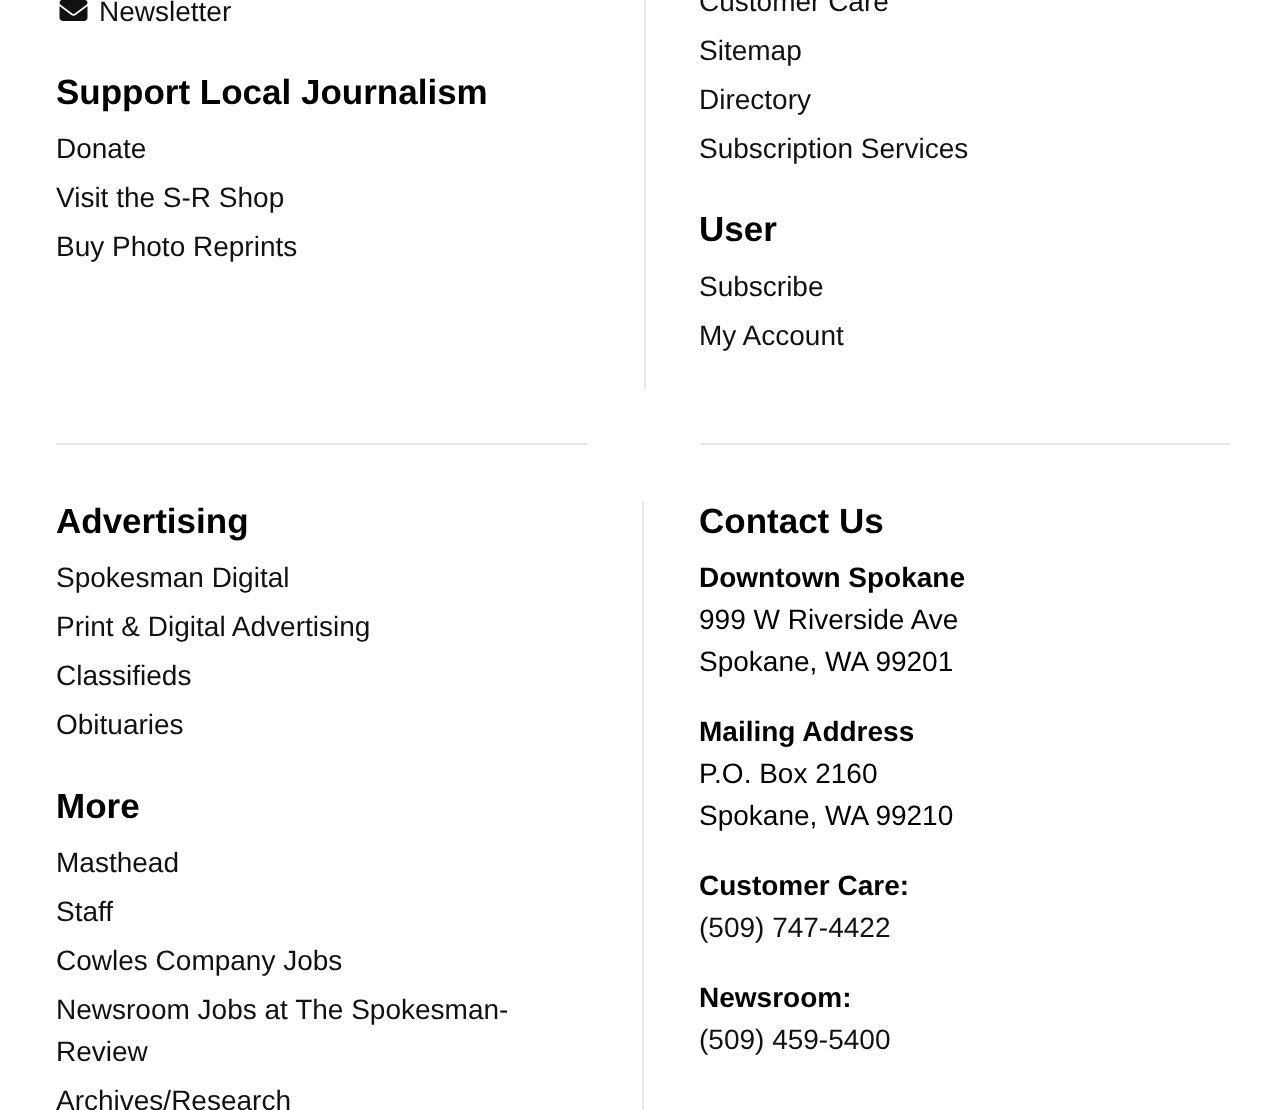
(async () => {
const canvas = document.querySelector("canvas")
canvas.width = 1285
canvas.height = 1110
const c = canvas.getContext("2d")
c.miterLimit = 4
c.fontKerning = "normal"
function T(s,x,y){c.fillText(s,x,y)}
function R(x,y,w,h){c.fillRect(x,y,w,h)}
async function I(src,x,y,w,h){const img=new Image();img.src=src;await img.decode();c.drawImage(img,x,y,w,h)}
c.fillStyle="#fff"
R(0,0,1285,1110)
await I("1.png",59,0,29,21)
c.font="28px Liberation Sans"
c.fillStyle="#111"
T("Newsletter",99,21)
c.font="bold 35px Liberation Sans"
c.fillStyle="#000"
T("Support Local Journalism",56,104)
c.font="28px Liberation Sans"
c.fillStyle="#111"
T("Donate",56,158)
T("Visit the S-R Shop",56,207)
T("Buy Photo Reprints",56,256)
c.fillStyle="#e6e6e6"
R(56,443,532,2)
R(644,0,2,389)
c.fillStyle="#111"
T("Customer Care",699,11)
T("Sitemap",699,60)
T("Directory",699,109)
T("Subscription Services",699,158)
c.font="bold 35px Liberation Sans"
c.fillStyle="#000"
T("User",699,241)
c.font="28px Liberation Sans"
c.fillStyle="#111"
T("Subscribe",699,296)
T("My Account",699,345)
c.fillStyle="#e6e6e6"
R(700,443,530,2)
c.font="bold 35px Liberation Sans"
c.fillStyle="#000"
T("Advertising",56,533)
c.fillStyle="#e6e6e6"
R(642,501,2,609)
c.font="28px Liberation Sans"
c.fillStyle="#111"
T("Spokesman Digital",56,587)
T("Print & Digital Advertising",56,636)
T("Classifieds",56,685)
T("Obituaries",56,734)
c.font="bold 35px Liberation Sans"
c.fillStyle="#000"
T("More",56,818)
c.font="28px Liberation Sans"
c.fillStyle="#111"
T("Masthead",56,872)
T("Staff",56,921)
T("Cowles Company Jobs",56,970)
T("Newsroom Jobs at The Spokesman-",56,1019)
T("Review",56,1061)
T("Archives/Research",56,1110)
c.font="bold 35px Liberation Sans"
c.fillStyle="#000"
T("Contact Us",699,533)
c.font="bold 28px Liberation Sans"
T("Downtown Spokane",699,587)
c.font="28px Liberation Sans"
T("999 W Riverside Ave",699,629)
T("Spokane, WA 99201",699,671)
c.font="bold 28px Liberation Sans"
T("Mailing Address",699,741)
c.font="28px Liberation Sans"
T("P.O. Box 2160",699,783)
T("Spokane, WA 99210",699,825)
c.font="bold 28px Liberation Sans"
T("Customer Care:",699,895)
c.font="28px Liberation Sans"
c.fillStyle="#111"
T("(509) 747-4422",699,937)
c.font="bold 28px Liberation Sans"
c.fillStyle="#000"
T("Newsroom:",699,1007)
c.font="28px Liberation Sans"
c.fillStyle="#111"
T("(509) 459-5400",699,1049)
})()
